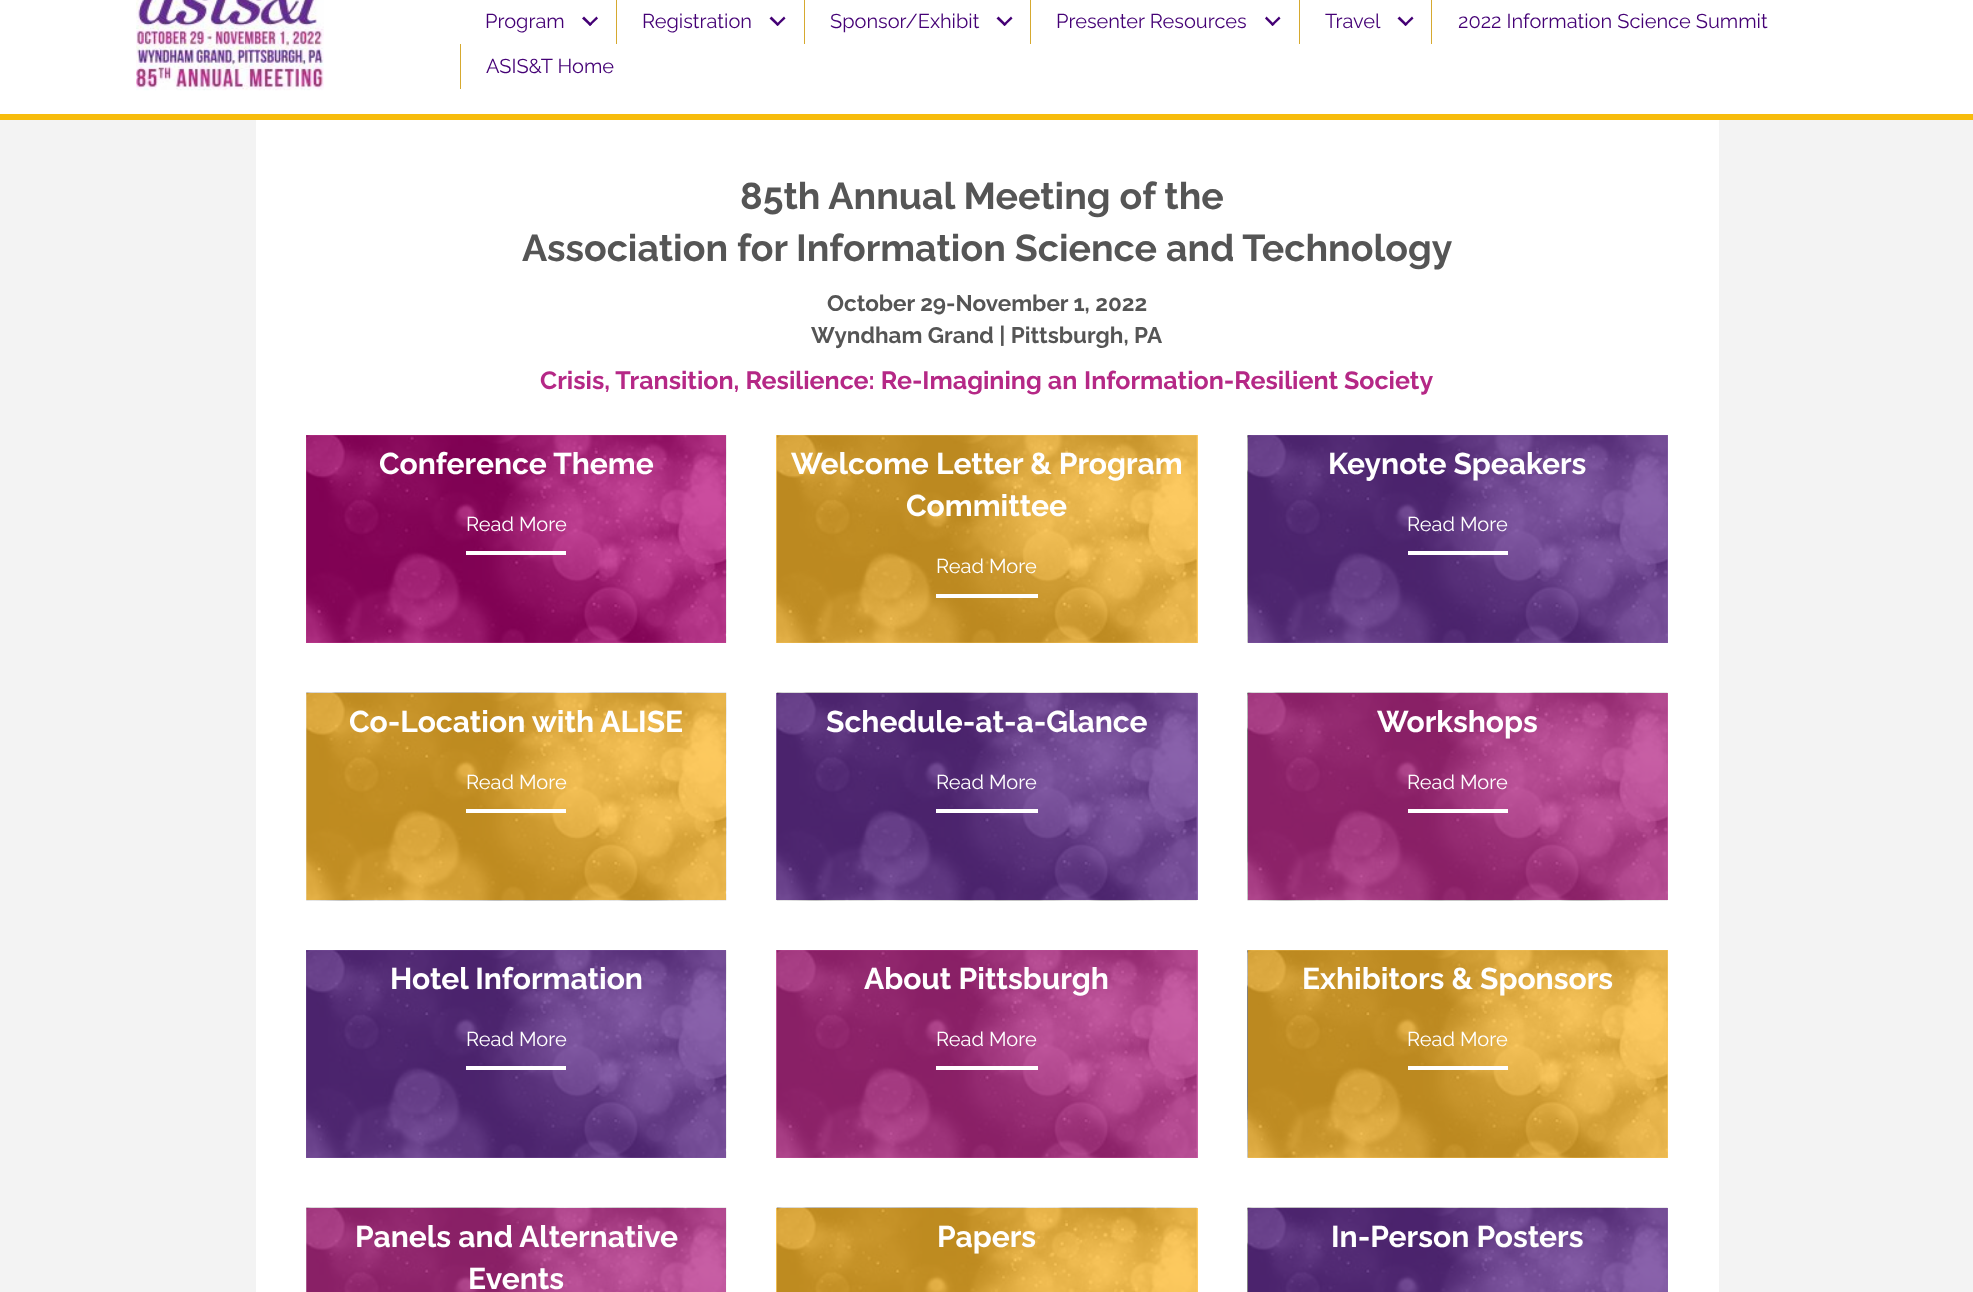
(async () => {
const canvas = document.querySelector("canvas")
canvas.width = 1973
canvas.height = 1292
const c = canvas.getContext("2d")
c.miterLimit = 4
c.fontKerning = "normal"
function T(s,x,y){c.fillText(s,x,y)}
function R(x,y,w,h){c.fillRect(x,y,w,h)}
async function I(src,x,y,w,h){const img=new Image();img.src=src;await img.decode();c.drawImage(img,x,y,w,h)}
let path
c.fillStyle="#fff"
R(0,0,1973,1292)
await I("1.png",136,0,188,91)
c.font="20px Raleway"
c.fillStyle="#440075"
T("Program",485,28)
path = new Path2D("M596.5 16.5l1.5 2l-8 7.5l-1.5-1.5z")
c.fill(path)
path = new Path2D("M584 16.5l8 8l-2 1.5l-8-7.5z")
c.fill(path)
c.fillStyle="#d6a92f"
R(616,0,1,44)
c.fillStyle="#440075"
T("Registration",642,28)
path = new Path2D("M784 16.5l1.5 2l-8 7.5l-1.5-1.5z")
c.fill(path)
path = new Path2D("M771.5 16.5l8 8l-2 1.5l-8-7.5z")
c.fill(path)
c.fillStyle="#d6a92f"
R(804,0,1,44)
c.fillStyle="#440075"
T("Sponsor/Exhibit",830,28)
path = new Path2D("M1011 16.5l1.5 2l-8 7.5l-1.5-1.5z")
c.fill(path)
path = new Path2D("M998.5 16.5l8 8l-2 1.5l-8-7.5z")
c.fill(path)
c.fillStyle="#d6a92f"
R(1030,0,1,44)
c.fillStyle="#440075"
T("Presenter Resources",1056,28)
path = new Path2D("M1279 16.5l1.5 2l-8 7.5l-1.5-1.5z")
c.fill(path)
path = new Path2D("M1266.5 16.5l8 8l-2 1.5l-7.5-7.5z")
c.fill(path)
c.fillStyle="#d6a92f"
R(1299,0,1,44)
c.fillStyle="#440075"
T("Travel",1325,28)
path = new Path2D("M1412 16.5l1.5 2l-8 7.5l-1.5-1.5z")
c.fill(path)
path = new Path2D("M1399.5 16.5l8 8l-2 1.5l-8-7.5z")
c.fill(path)
c.fillStyle="#d6a92f"
R(1431,0,1,44)
c.fillStyle="#440075"
T("2022 Information Science Summit",1458,28)
c.fillStyle="#d6a92f"
R(460,44,1,45)
c.fillStyle="#440075"
T("ASIS&T Home",486,73)
c.fillStyle="#f7bc0c"
R(0,114,1973,6)
c.fillStyle="#f3f3f3"
R(0,120,1973,1172)
c.fillStyle="#fff"
R(256,120,1463,1172)
c.fillStyle="#8962ab"
R(1667,1208,1,84)
c.fillStyle="#fdc95f"
R(776,1208,422,84)
c.fillStyle="#fdca61"
R(1248,950,420,208)
c.fillStyle="#c85ea4"
R(776,950,422,208)
c.fillStyle="#8962ab"
R(306,950,420,208)
c.fillStyle="#c85ea4"
R(1667,693,1,207)
c.fillStyle="#8962ab"
R(776,693,422,207)
R(1248,435,420,208)
c.fillStyle="#fdca61"
R(776,435,422,208)
c.fillStyle="#cb4d9e"
R(306,435,420,208)
c.font="bold 37.5px Raleway"
c.fillStyle="#555"
T("85th Annual Meeting of the",740,209)
T("Association for Information Science and Technology",522,261)
c.font="bold 22.5px Raleway"
T("October 29-November 1, 2022",827,311)
T("Wyndham Grand | Pittsburgh, PA",811,343)
c.font="bold 25px Raleway"
c.fillStyle="#b52886"
T("Crisis, Transition, Resilience: Re-Imagining an",540,389)
T("Information-Resilient Society",1084,389)
await I("2.png",306,435,421,208)
c.font="bold 30px Raleway"
c.fillStyle="#fff"
T("Conference Theme",379,474)
R(466,551,100,4)
c.font="20px Raleway"
T("Read More",466,531)
await I("3.png",776,435,421,208)
c.font="bold 30px Raleway"
T("Welcome Letter & Program",791,474)
T("Committee",906,516)
R(936,594,102,4)
c.font="20px Raleway"
T("Read More",936,573)
await I("4.png",1247,435,421,208)
c.font="bold 30px Raleway"
T("Keynote Speakers",1328,474)
R(1408,551,100,4)
c.font="20px Raleway"
T("Read More",1407,531)
await I("5.png",306,692,421,209)
c.font="bold 30px Raleway"
T("Co-Location with ALISE",349,732)
R(466,809,100,4)
c.font="20px Raleway"
T("Read More",466,789)
await I("6.png",776,692,421,209)
c.font="bold 30px Raleway"
T("Schedule-at-a-Glance",826,732)
R(936,809,102,4)
c.font="20px Raleway"
T("Read More",936,789)
await I("7.png",1247,692,421,209)
c.font="bold 30px Raleway"
T("Workshops",1377,732)
R(1408,809,100,4)
c.font="20px Raleway"
T("Read More",1407,789)
await I("8.png",306,950,421,208)
c.font="bold 30px Raleway"
T("Hotel Information",390,989)
R(466,1066,100,4)
c.font="20px Raleway"
T("Read More",466,1046)
await I("9.png",776,950,421,208)
c.font="bold 30px Raleway"
T("About Pittsburgh",864,989)
R(936,1066,102,4)
c.font="20px Raleway"
T("Read More",936,1046)
await I("10.png",1247,950,421,208)
c.font="bold 30px Raleway"
T("Exhibitors & Sponsors",1302,989)
R(1408,1066,100,4)
c.font="20px Raleway"
T("Read More",1407,1046)
await I("11.png",306,1207,421,85)
c.font="bold 30px Raleway"
T("Panels and Alternative",355,1247)
T("Events",468,1289)
await I("12.png",776,1207,421,85)
T("Papers",937,1247)
await I("13.png",1247,1207,421,85)
T("In-Person Posters",1331,1247)
})()
